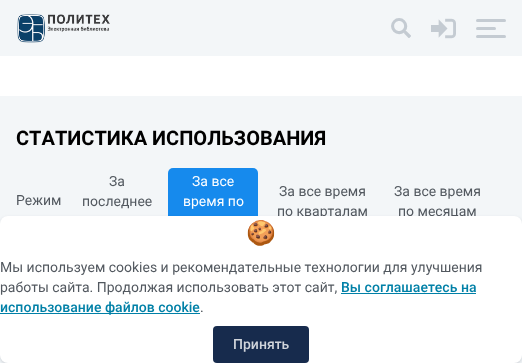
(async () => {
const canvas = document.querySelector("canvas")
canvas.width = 522
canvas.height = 363
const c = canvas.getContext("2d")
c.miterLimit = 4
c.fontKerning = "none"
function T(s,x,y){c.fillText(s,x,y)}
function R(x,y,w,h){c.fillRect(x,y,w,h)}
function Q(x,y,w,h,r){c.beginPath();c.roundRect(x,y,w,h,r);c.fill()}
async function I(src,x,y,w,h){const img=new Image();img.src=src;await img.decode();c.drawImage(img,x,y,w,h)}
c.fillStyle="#f3f6f8"
R(0,0,522,363)
await I("1.png",17,14,93,29)
await I("2.png",391,18,20,20)
await I("3.png",431,18,25,21)
c.fillStyle="#c4cbd2"
Q(476,19,30,3,1.5)
Q(476,27,20,3,1.5)
Q(476,35,30,3,1.5)
c.fillStyle="#fff"
R(0,56,522,40)
c.font="bold 20px Roboto"
c.fillStyle="#000"
T("СТАТИСТИКА ИСПОЛЬЗОВАНИЯ",16,145)
c.font="14px Roboto"
c.fillStyle="#52585f"
T("Режим",16,205)
T("За",109,186)
T("последнее",82,206)
c.fillStyle="#168aed"
Q(168,168,90,67,5)
c.fillStyle="#fff"
T("За все",192,186)
T("время по",183,206)
c.fillStyle="#52585f"
T("За все время",279,196)
T("по кварталам",277,216)
T("За все время",394,196)
T("по месяцам",398,216)
c.fillStyle="#00000012"
c.filter="blur(1px)"
c.beginPath()
c.roundRect(0,217,522,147,8)
c.fill()
c.filter="none"
c.fillStyle="#0a254017"
c.filter="blur(2px)"
c.beginPath()
c.roundRect(0,218,522,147,8)
c.fill()
c.filter="none"
c.fillStyle="#fff"
Q(0,216,522,147,8)
c.font="24px Noto Color Emoji"
c.fillStyle="#52585f"
T("🍪",246,241)
c.font="14px Roboto"
T("Мы используем cookies и рекомендательные технологии для улучшения",0,272)
T("работы сайта. Продолжая использовать этот сайт,",0,292)
c.font="500 14px Roboto"
c.fillStyle="#0080a7"
T("Вы соглашаетесь на",341,292)
R(341,293,135,1)
R(0,313,200,1)
T("использование файлов cookie",0,312)
c.font="14px Roboto"
c.fillStyle="#52585f"
T(".",200,312)
c.fillStyle="#172b4d"
Q(213,326,96,37,4)
c.font="500 14px Roboto"
c.fillStyle="#d1d5db"
T("Принять",233,349)
})()
